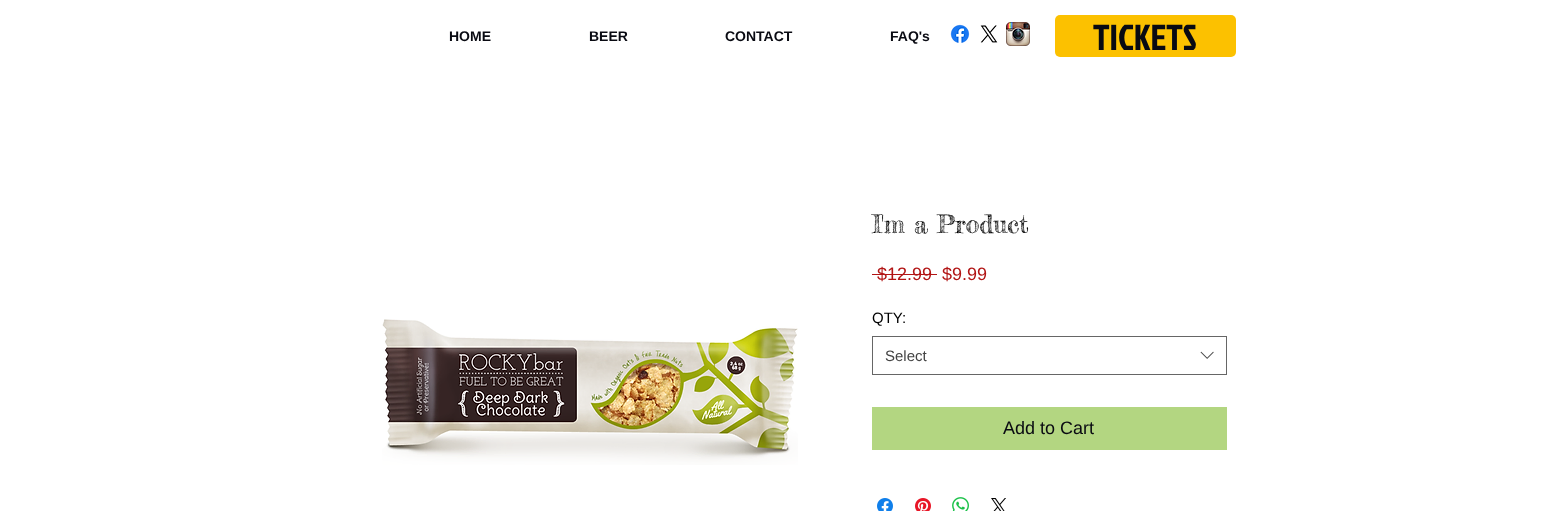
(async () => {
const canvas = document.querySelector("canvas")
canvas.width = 1563
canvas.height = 511
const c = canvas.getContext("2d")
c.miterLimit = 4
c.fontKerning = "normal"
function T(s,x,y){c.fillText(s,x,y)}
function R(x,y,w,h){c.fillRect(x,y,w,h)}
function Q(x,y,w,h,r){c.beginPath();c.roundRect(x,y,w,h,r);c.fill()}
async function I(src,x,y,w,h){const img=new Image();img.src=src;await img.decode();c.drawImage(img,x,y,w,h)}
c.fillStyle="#fff"
R(0,0,1563,511)
c.font="bold 14px Liberation Sans"
c.fillStyle="#090a12"
T("HOME",449,41)
T("BEER",589,41)
T("CONTACT",725,41)
T("FAQ's",890,41)
await I("1.png",950,24,20,19)
await I("2.png",980,25,18,18)
await I("3.png",1006,22,24,24)
c.fillStyle="#fcc100"
Q(1055,15,181,42,5)
c.font="36px Jockey One"
c.fillStyle="#090a12"
T("TICKETS",1093,50)
await I("4.png",382,319,416,146)
c.font="25px Fredericka the Great"
c.fillStyle="#000"
T("I'm a Product",872,233)
c.font="18px Liberation Sans"
c.fillStyle="#b21515"
T("$12.99",877,280)
R(872,274,65,1)
T("$9.99",942,280)
c.font="15px Liberation Sans"
c.fillStyle="#000"
T("QTY:",872,323)
c.strokeStyle="#666"
c.strokeRect(872.5,336.5,354,38)
c.fillStyle="#444"
T("Select",885,361)
await I("5.png",1200,351,14,8)
c.fillStyle="#b3d681"
R(872,407,355,43)
c.font="18px Liberation Sans"
c.fillStyle="#090a12"
T("Add to Cart",1003,434)
await I("6.png",877,498,16,13)
await I("7.png",915,498,16,13)
await I("8.png",952,497,17,14)
await I("9.png",991,498,15,13)
})()
